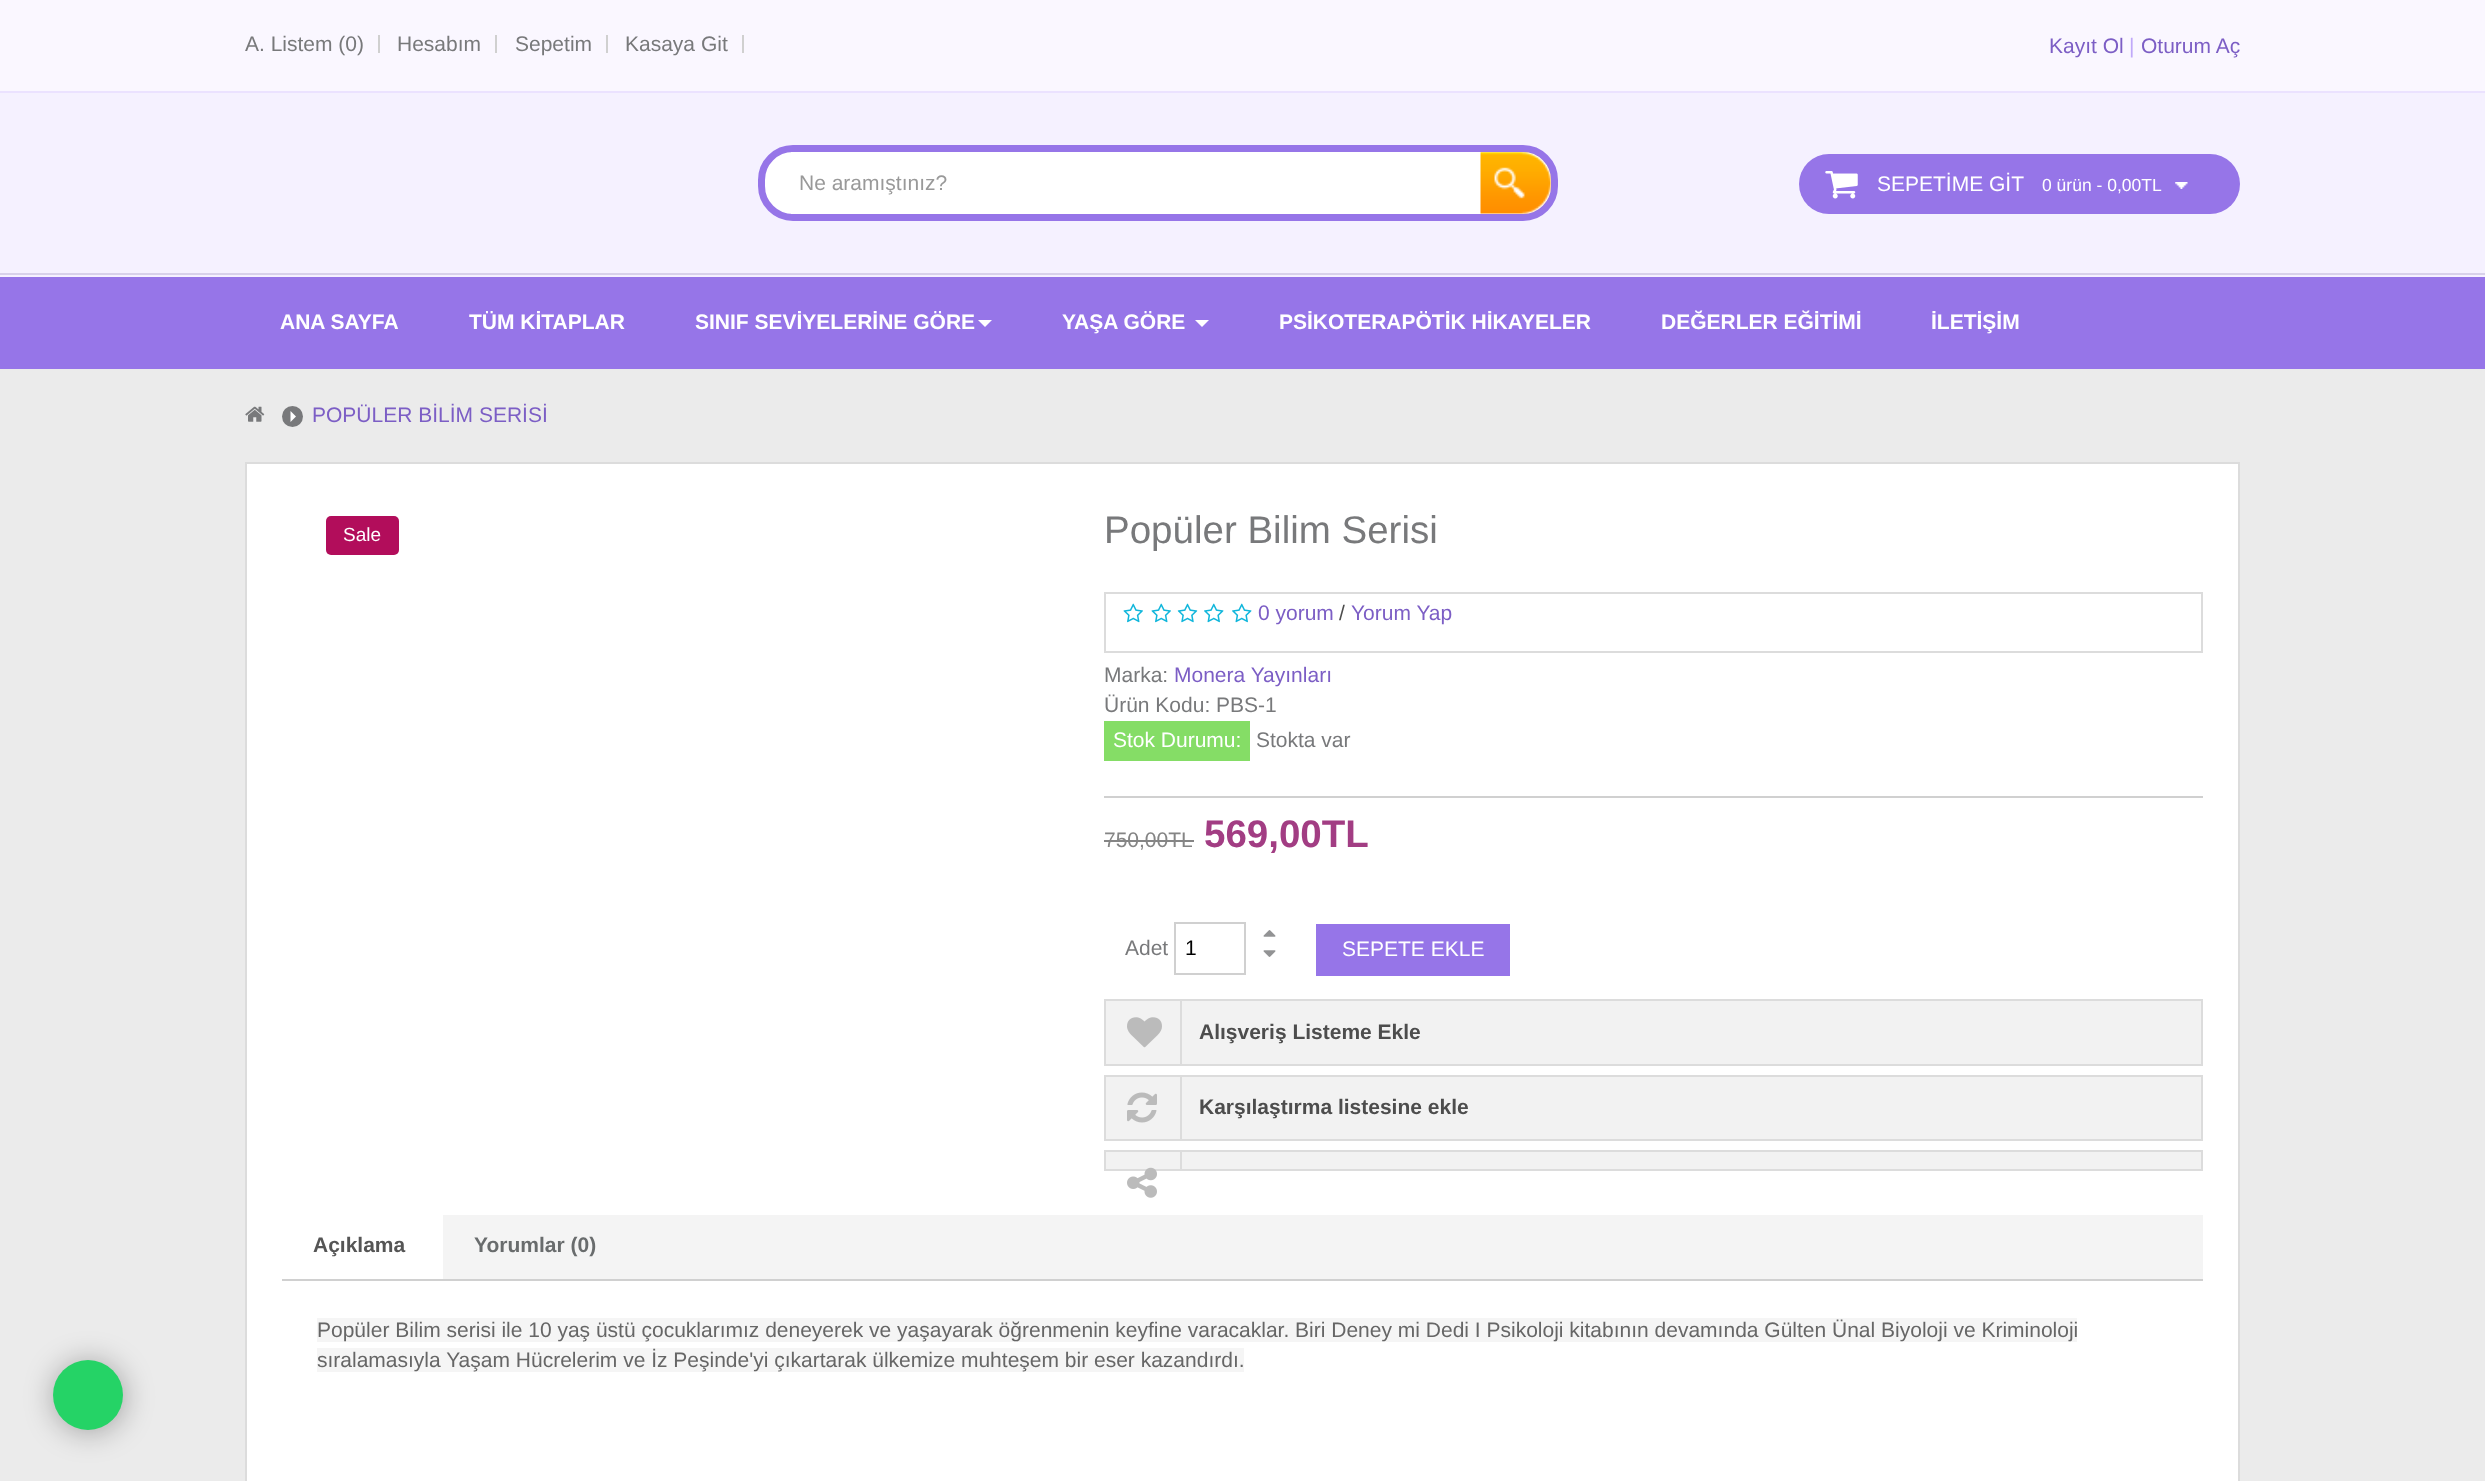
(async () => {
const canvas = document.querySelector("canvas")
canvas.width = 2485
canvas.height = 1481
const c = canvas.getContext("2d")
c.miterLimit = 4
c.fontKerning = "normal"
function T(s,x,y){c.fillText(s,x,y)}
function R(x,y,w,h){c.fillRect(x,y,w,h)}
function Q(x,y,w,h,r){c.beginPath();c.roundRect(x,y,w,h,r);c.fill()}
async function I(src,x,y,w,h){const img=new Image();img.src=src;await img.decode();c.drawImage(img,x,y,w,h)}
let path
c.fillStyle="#ebebeb"
R(0,0,2485,1481)
c.fillStyle="#faf7ff"
R(0,0,2485,91)
c.fillStyle="#d0d0d0"
R(378,35,2,18)
c.font="21px Liberation Sans"
c.fillStyle="#78797b"
T("A. Listem (0)",245,51)
c.fillStyle="#d0d0d0"
R(495,35,2,18)
c.fillStyle="#78797b"
T("Hesabım",397,51)
c.fillStyle="#d0d0d0"
R(606,35,2,18)
c.fillStyle="#78797b"
T("Sepetim",515,51)
c.fillStyle="#d0d0d0"
R(742,35,2,18)
c.fillStyle="#78797b"
T("Kasaya Git",625,51)
c.fillStyle="#7c5ec5"
T("Kayıt Ol",2049,53)
c.fillStyle="#c0a9f9"
T("|",2129,53)
c.fillStyle="#7c5ec5"
T("Oturum Aç",2141,53)
c.fillStyle="#f5f1ff"
R(0,93,2485,180)
c.fillStyle="#ebe2ff"
R(0,91,2485,2)
c.fillStyle="#d8d1ea"
R(0,273,2485,2)
c.fillStyle="#fff"
c.beginPath()
c.roundRect(761.5,148.5,793,69,31.5)
c.fill()
c.strokeStyle="#9675e8"
c.lineWidth=7
c.stroke()
R(791,152,2,62)
c.fillStyle="#999"
T("Ne aramıştınız?",799,190)
await I("1.png",1480,152,71,62)
c.fillStyle="#9675e8"
Q(1799,154,441,60,30)
await I("2.png",1825,171,33,28)
c.fillStyle="#fff"
T("SEPETİME GİT",1877,191)
c.font="17.5px Liberation Sans"
T("0 ürün - 0,00TL",2042,191)
await I("3.png",2175,182,13,7)
c.fillStyle="#9675e8"
R(0,277,2485,92)
c.fillStyle="#f5f1ff"
R(0,275,2485,2)
c.font="bold 21px Liberation Sans"
c.fillStyle="#fff"
T("ANA SAYFA",280,329)
T("TÜM KİTAPLAR",469,329)
T("SINIF SEVİYELERİNE GÖRE",695,329)
path = new Path2D("M978 320h14l-7 7z")
c.fill(path)
T("YAŞA GÖRE",1062,329)
path = new Path2D("M1195 320h14l-7 7z")
c.fill(path)
T("PSİKOTERAPÖTİK HİKAYELER",1279,329)
T("DEĞERLER EĞİTİMİ",1661,329)
T("İLETİŞİM",1931,329)
await I("4.png",245,406,20,16)
c.fillStyle="#78797b"
c.beginPath()
c.arc(292.5,416.5,10.5,0,7)
c.fill()
c.fillStyle="#fff"
path = new Path2D("M290.5 422v-11l5.5 5.5z")
c.fill(path)
c.font="21px Liberation Sans"
c.fillStyle="#7c5ec5"
T("POPÜLER BİLİM SERİSİ",312,422)
c.fillStyle="#fff"
c.beginPath()
c.rect(246,463,1993,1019)
c.fill()
c.strokeStyle="#dcdcdc"
c.lineWidth=2
c.stroke()
c.fillStyle="#b20d5b"
Q(326,516,73,39,5)
c.font="19px Liberation Sans"
c.fillStyle="#fff"
T("Sale",343,541)
c.font="38.5px Liberation Sans"
c.fillStyle="#78797b"
T("Popüler Bilim Serisi",1104,543)
c.strokeRect(1105,593,1097,59)
await I("5.png",1123,603,20,20)
await I("5.png",1151,603,20,20)
await I("6.png",1177,603,21,20)
await I("7.png",1204,603,20,20)
await I("7.png",1232,603,20,20)
c.font="21px Liberation Sans"
c.fillStyle="#7c5ec5"
T("0 yorum",1258,620)
c.fillStyle="#4d4d4d"
T("/",1339,620)
c.fillStyle="#7c5ec5"
T("Yorum Yap",1351,620)
c.fillStyle="#78797b"
T("Marka:",1104,682)
c.fillStyle="#7c5ec5"
T("Monera Yayınları",1174,682)
c.fillStyle="#78797b"
T("Ürün Kodu: PBS-1",1104,712)
c.fillStyle="#85dd66"
R(1104,721,146,40)
c.fillStyle="#fff"
T("Stok Durumu:",1113,747)
c.fillStyle="#78797b"
T("Stokta var",1256,747)
c.fillStyle="#d0d0d0"
R(1104,796,1099,2)
c.fillStyle="#858585"
T("750,00TL",1104,847)
R(1104,840,90,2)
c.font="bold 38.5px Liberation Sans"
c.fillStyle="#a23d83"
T("569,00TL",1204,847)
c.font="21px Liberation Sans"
c.fillStyle="#78797b"
T("Adet",1125,955)
c.strokeStyle="#d0d0d0"
c.strokeRect(1175,923,70,51)
c.fillStyle="#000"
T("1",1185,955)
await I("8.png",1263,930,13,7)
await I("9.png",1263,950,13,7)
c.fillStyle="#9675e8"
R(1316,924,194,52)
c.fillStyle="#fff"
T("SEPETE EKLE",1342,956)
c.fillStyle="#f2f2f2"
c.beginPath()
c.rect(1105,1000,1097,65)
c.fill()
c.strokeStyle="#dcdcdc"
c.stroke()
await I("10.png",1127,1017,35,31)
c.fillStyle="#dcdcdc"
R(1180,1001,2,63)
c.font="bold 21px Liberation Sans"
c.fillStyle="#4d4d4d"
T("Alışveriş Listeme Ekle",1199,1039)
c.fillStyle="#f2f2f2"
c.beginPath()
c.rect(1105,1076,1097,64)
c.fill()
c.stroke()
await I("11.png",1127,1092,30,31)
c.fillStyle="#dcdcdc"
R(1180,1076,2,63)
c.fillStyle="#4d4d4d"
T("Karşılaştırma listesine ekle",1199,1114)
c.fillStyle="#f2f2f2"
c.beginPath()
c.rect(1105,1151,1097,19)
c.fill()
c.stroke()
c.fillStyle="#dcdcdc"
R(1180,1152,2,17)
await I("12.png",1127,1167,30,31)
c.fillStyle="#f4f4f4"
R(443,1215,1760,64)
c.fillStyle="#d0d0d0"
R(282,1279,1921,2)
c.fillStyle="#555"
T("Açıklama",313,1252)
c.fillStyle="#696c6d"
T("Yorumlar (0)",474,1252)
c.fillStyle="#f5f5f5"
R(317,1318,1760,24)
c.font="21px Liberation Sans"
c.fillStyle="#666"
T("Popüler Bilim serisi ile 10 yaş üstü çocuklarımız deneyerek ve yaşayarak öğrenmenin keyfine varacaklar. Biri Deney mi Dedi I Psikoloji kitabının devamında Gülten Ünal Biyoloji ve Kriminoloji",317,1337)
c.fillStyle="#f5f5f5"
R(317,1348,927,24)
c.fillStyle="#666"
T("sıralamasıyla Yaşam Hücrelerim ve İz Peşinde'yi çıkartarak ülkemize muhteşem bir eser kazandırdı.",317,1367)
c.fillStyle="#00000052"
c.filter="blur(15px)"
c.beginPath()
c.roundRect(54,1362,70,70,35)
c.fill()
c.filter="none"
c.fillStyle="#25d366"
c.beginPath()
c.arc(88,1395,35,0,7)
c.fill()
})()
